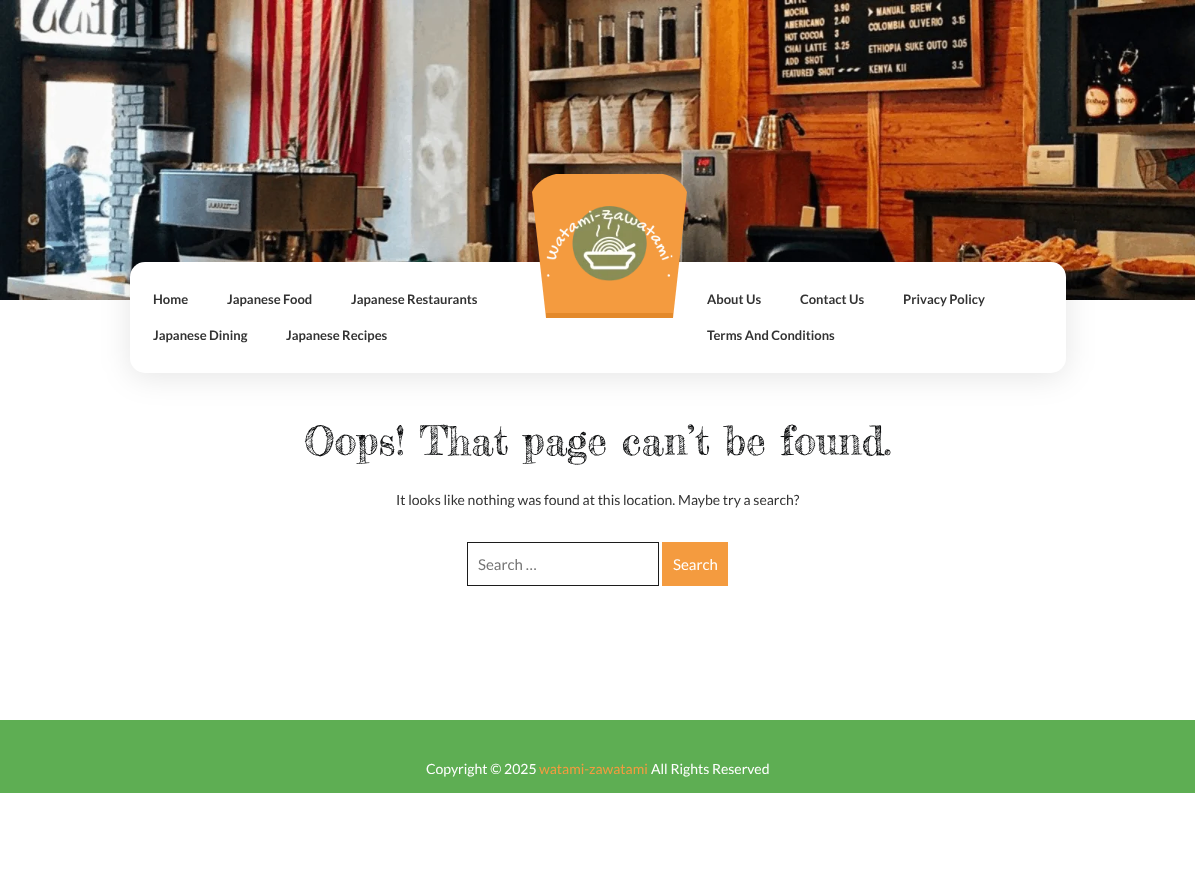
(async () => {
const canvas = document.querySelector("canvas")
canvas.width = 1195
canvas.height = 877
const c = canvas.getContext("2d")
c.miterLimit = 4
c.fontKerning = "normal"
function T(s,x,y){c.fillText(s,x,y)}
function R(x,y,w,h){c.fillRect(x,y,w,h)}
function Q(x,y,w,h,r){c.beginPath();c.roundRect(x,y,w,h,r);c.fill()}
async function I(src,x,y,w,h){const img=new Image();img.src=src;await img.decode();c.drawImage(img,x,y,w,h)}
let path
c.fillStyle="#fff"
R(0,0,1195,877)
await I("1.png",0,0,1195,300)
c.fillStyle="#0000001a"
c.filter="blur(15px)"
c.beginPath()
c.roundRect(130,266,936,111,15)
c.fill()
c.filter="none"
c.fillStyle="#fff"
Q(130,262,936,111,15)
c.font="bold 13px Lato"
c.fillStyle="#333"
T("Home",153,304)
T("Japanese Food",227,304)
T("Japanese Restaurants",351,304)
T("Japanese Dining",153,340)
T("Japanese Recipes",286,340)
c.fillStyle="#f49b3f"
path = new Path2D("M532 192c4-9 13-16 24-18h107c11 2 20 9 24 18l-14 126h-127z")
c.fill(path)
c.fillStyle="#e3892b"
R(546,313,127,5)
await I("2.png",546,206,127,75)
c.fillStyle="#333"
T("About Us",707,304)
T("Contact Us",800,304)
T("Privacy Policy",903,304)
T("Terms And Conditions",707,340)
c.font="39.9px Fredericka the Great"
c.fillStyle="#0c0d0e"
T("Oops! That page can’t be found.",304,455)
c.font="14px Lato"
c.fillStyle="#333"
T("It looks like nothing was found at this location. Maybe try a search?",396,505)
c.strokeStyle="#1c1c1c"
c.strokeRect(467.5,542.5,191,43)
c.font="15px Lato"
c.fillStyle="#757575"
T("Search …",478,570)
c.fillStyle="#f49b3f"
R(662,542,66,44)
c.fillStyle="#fff"
T("Search",673,570)
c.fillStyle="#5eae53"
R(0,720,1195,73)
c.font="14px Lato"
c.fillStyle="#fff"
T("Copyright © 2025",426,774)
c.fillStyle="#f49b3f"
T("watami-zawatami",539,774)
c.fillStyle="#fff"
T("All Rights Reserved",651,774)
})()
